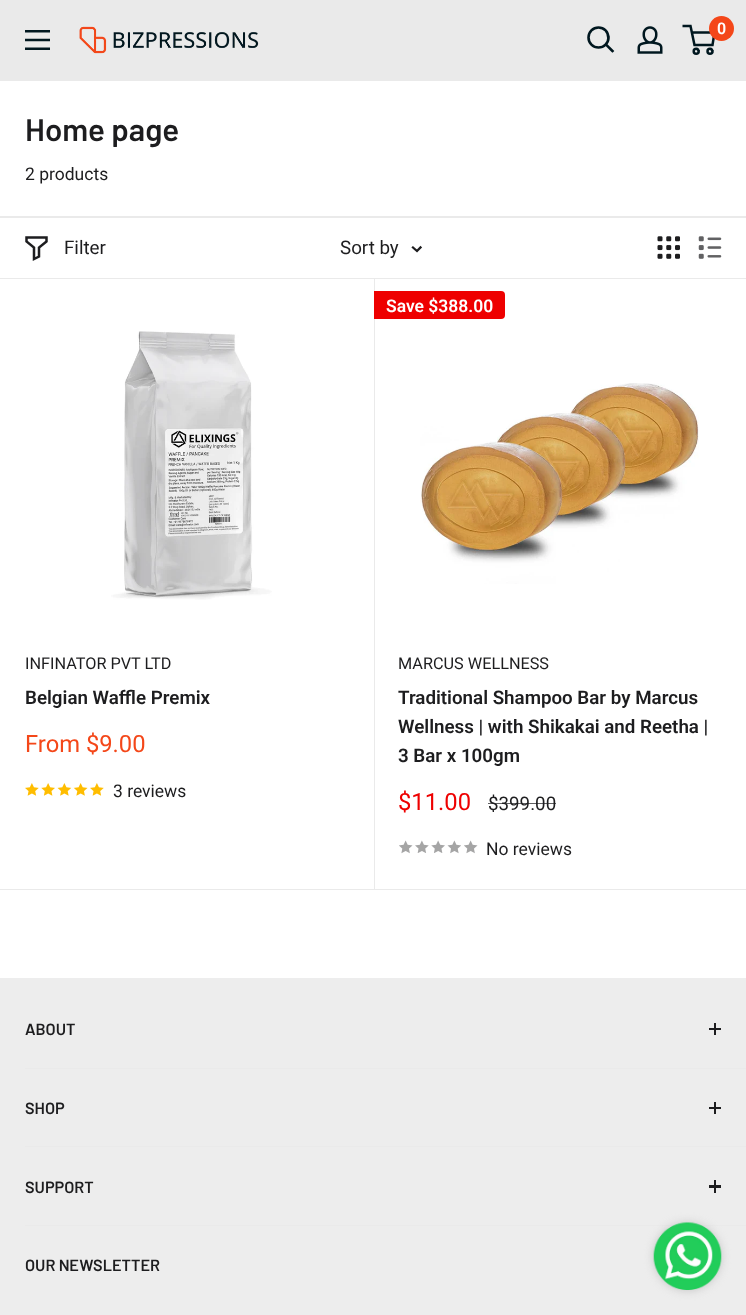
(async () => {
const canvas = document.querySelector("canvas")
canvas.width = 746
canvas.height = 1315
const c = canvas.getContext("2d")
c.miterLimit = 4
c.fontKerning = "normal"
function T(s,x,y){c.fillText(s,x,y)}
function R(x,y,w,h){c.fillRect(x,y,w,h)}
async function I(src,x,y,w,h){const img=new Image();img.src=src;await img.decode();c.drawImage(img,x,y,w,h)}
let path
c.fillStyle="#fff"
R(0,0,746,1315)
c.fillStyle="#eaeaea"
R(0,0,746,81)
await I("1.png",25,30,25,20)
await I("2.png",79,26,180,28)
path = new Path2D("M612.5 51l-6.5-6.5")
c.strokeStyle="#00171f"
c.lineWidth=2.6
c.lineCap="square"
c.stroke(path)
c.beginPath()
c.arc(598.5,37.5,10,0,7)
c.stroke()
await I("3.png",637,26,26,28)
c.beginPath()
c.arc(696.2,51.2,2.5,0,7)
c.lineWidth=2.5
c.stroke()
c.beginPath()
c.arc(710,51.2,2.5,0,7)
c.stroke()
path = new Path2D("M691.5 32.5h23l-2 12.5h-18l-4-19h-8")
c.lineCap="butt"
c.stroke(path)
c.fillStyle="#f44719"
c.beginPath()
c.arc(721.5,28.5,12.5,0,7)
c.fill()
c.font="600 16px Roboto"
c.fillStyle="#fff"
T("0",717,34)
c.fillStyle="#eaeaea"
R(0,889,746,1)
c.font="600 31.25px Barlow"
c.fillStyle="#1d1d1f"
T("Home page",25,141)
c.font="17.5px Roboto"
T("2 products",25,180)
c.fillStyle="#eaeaea"
R(0,216,746,2)
path = new Path2D("M1 889h374v-611h-1v611z")
c.fill(path)
R(0,278,746,1)
path = new Path2D("M46.5 241.5l-7.5 6v9l-5 2.5v-11.5l-7.5-6v-4h20z")
c.strokeStyle="#1d1d1f"
c.lineCap="square"
c.stroke(path)
c.font="18.75px Roboto"
c.fillStyle="#1d1d1f"
T("Filter",64,254)
T("Sort by",340,254)
path = new Path2D("M420.5 247.5l-3.5 3.5l-4-3.5")
c.lineWidth=2.3
c.stroke(path)
await I("4.png",657,236,23,23)
await I("5.png",698,236,24,23)
await I("6.png",111,331,161,269)
c.font="16.25px Roboto"
T("INFINATOR PVT LTD",25,669)
c.font="600 18.75px Roboto"
T("Belgian Waffle Premix",25,704)
c.font="23.75px Roboto"
c.fillStyle="#f44719"
T("From $9.00",25,752)
await I("7.png",25,783,14,13)
await I("8.png",41,783,14,13)
await I("9.png",57,783,15,13)
await I("10.png",73,783,15,13)
await I("7.png",90,783,14,13)
c.font="17.5px Roboto"
c.fillStyle="#1d1d1f"
T("3 reviews",113,797)
c.fillStyle="#e00"
c.beginPath()
c.roundRect(374,291,131,28,[0,4,4,0])
c.fill()
c.font="600 17.5px Roboto"
c.fillStyle="#fff"
T("Save $388.00",386,312)
await I("11.png",420,383,279,201)
c.font="16.25px Roboto"
c.fillStyle="#1d1d1f"
T("MARCUS WELLNESS",398,669)
c.font="600 18.75px Roboto"
T("Traditional Shampoo Bar by Marcus",398,704)
T("Wellness | with Shikakai and Reetha |",398,733)
T("3 Bar x 100gm",398,762)
c.font="23.75px Roboto"
c.fillStyle="#e00"
T("$11.00",398,810)
c.font="18.75px Roboto"
c.fillStyle="#1d1d1f"
T("$399.00",488,810)
c.fillStyle="#1d1d1fb3"
R(488,803,68,1)
await I("12.png",399,840,14,14)
await I("13.png",415,840,14,13)
await I("14.png",431,840,14,13)
await I("15.png",447,840,14,14)
await I("12.png",464,840,14,14)
c.font="17.5px Roboto"
c.fillStyle="#1d1d1f"
T("No reviews",486,855)
c.fillStyle="#ededed"
R(0,978,746,337)
c.fillStyle="#eaeaea"
R(25,1068,721,1)
c.font="600 16.25px Barlow"
c.fillStyle="#1d1d1f"
T("ABOUT",25,1035)
R(714,1023,2,12)
R(709,1028,12,2)
c.fillStyle="#eaeaea"
R(25,1146,721,1)
c.fillStyle="#1d1d1f"
T("SHOP",25,1114)
R(714,1102,2,12)
R(709,1107,12,2)
c.fillStyle="#eaeaea"
R(25,1225,721,1)
c.fillStyle="#1d1d1f"
T("SUPPORT",25,1193)
R(714,1180,2,13)
R(709,1185,12,3)
T("OUR NEWSLETTER",25,1271)
c.fillStyle="#c2c2c2"
c.filter="blur(5px)"
c.beginPath()
c.roundRect(654,1223,67,67,33.5)
c.fill()
c.filter="none"
await I("16.png",653,1222,69,68)
})()
